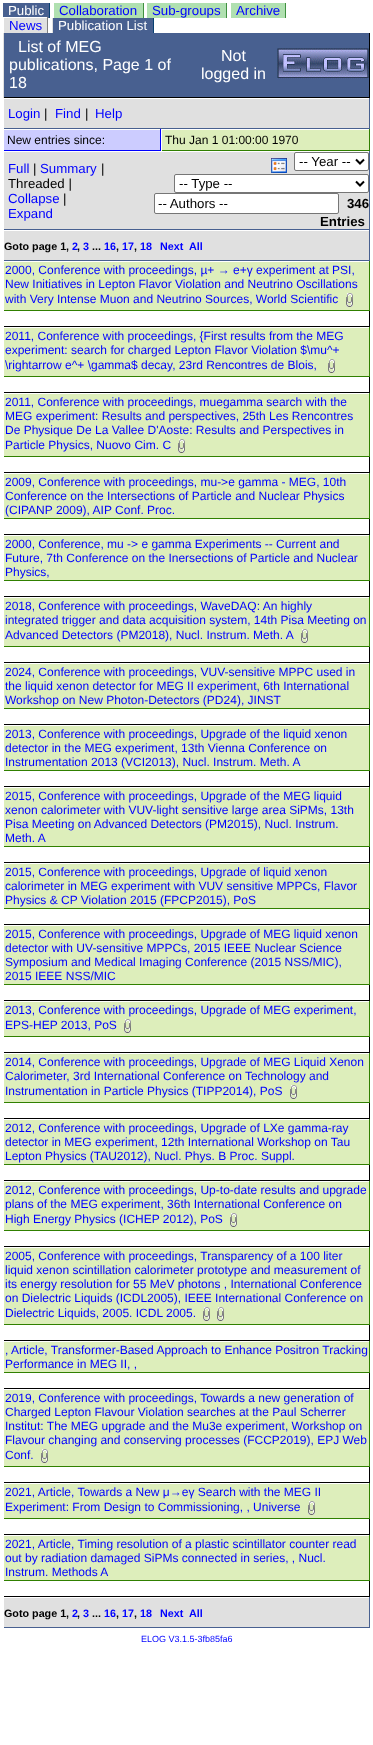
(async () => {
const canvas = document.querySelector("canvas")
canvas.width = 373
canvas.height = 1745
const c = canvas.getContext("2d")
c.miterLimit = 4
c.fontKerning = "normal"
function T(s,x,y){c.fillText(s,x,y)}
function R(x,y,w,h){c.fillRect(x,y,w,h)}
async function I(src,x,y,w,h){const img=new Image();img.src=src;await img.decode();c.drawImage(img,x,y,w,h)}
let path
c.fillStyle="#fff"
R(0,0,373,1745)
c.fillStyle="#486090"
R(3,3,46,15)
c.font="13.25px Liberation Sans"
c.fillStyle="#fff"
T("Public",8,15)
c.fillStyle="#084070"
R(49,3,1,15)
c.fillStyle="#b0e0b0"
R(54,3,89,15)
c.fillStyle="#00f"
T("Collaboration",59,15)
c.fillStyle="#409040"
R(143,3,1,15)
c.fillStyle="#b0e0b0"
R(147,3,79,15)
c.fillStyle="#00f"
T("Sub-groups",152,15)
c.fillStyle="#409040"
R(226,3,1,15)
c.fillStyle="#b0e0b0"
R(231,3,54,15)
c.fillStyle="#00f"
T("Archive",236,15)
c.fillStyle="#409040"
R(285,3,1,15)
c.fillStyle="#e0e0e0"
R(4,18,43,15)
c.fillStyle="#00f"
T("News",9,30)
c.fillStyle="#fff"
R(3,17,45,1)
c.fillStyle="#808080"
R(47,17,1,16)
c.fillStyle="#486090"
R(53,18,100,15)
c.fillStyle="#fff"
T("Publication List",58,30)
c.fillStyle="#084070"
R(153,18,1,15)
c.fillStyle="#e0e0e0"
R(52,18,1,15)
c.fillStyle="#486090"
R(4,33,365,64)
c.fillStyle="#000"
R(3,97,266,1)
c.fillStyle="#e0e0e0"
R(3,33,1,65)
c.font="16px Liberation Sans"
c.fillStyle="#fff"
T("List of MEG",18,52)
T("publications, Page 1 of",9,70)
T("18",9,88)
T("Not",221,61)
T("logged in",201,79)
c.fillStyle="#000"
R(369,33,1,65)
R(269,97,101,1)
await I("1.png",277,48,92,31)
c.fillStyle="#e0e0e0"
R(4,99,365,29)
c.fillStyle="#486090"
R(369,98,1,31)
R(3,128,367,1)
c.fillStyle="#fff"
R(3,128,1,1)
c.font="13.25px Liberation Sans"
c.fillStyle="#00f"
T("Login",8,118)
c.fillStyle="#000"
T("|",44,118)
c.fillStyle="#00f"
T("Find",55,118)
c.fillStyle="#000"
T("|",85,118)
c.fillStyle="#00f"
T("Help",95,118)
c.fillStyle="#ccf"
R(4,130,156,20)
c.fillStyle="#00f"
R(160,129,1,22)
R(3,150,158,1)
c.fillStyle="#fff"
R(3,150,1,1)
c.font="12px Liberation Sans"
c.fillStyle="#000"
T("New entries since:",7,144)
c.fillStyle="#deb"
R(162,130,207,20)
c.fillStyle="#308000"
R(369,129,1,22)
R(161,150,209,1)
c.fillStyle="#fff"
R(161,150,1,1)
c.fillStyle="#000"
T("Thu Jan 1 01:00:00 1970",165,144)
c.fillStyle="#e0e0e0"
R(4,152,365,77)
c.fillStyle="#486090"
R(369,151,1,110)
R(3,229,367,1)
c.fillStyle="#fff"
R(3,229,1,1)
c.font="13.25px Liberation Sans"
c.fillStyle="#00f"
T("Full",8,173)
c.fillStyle="#000"
T("|",33,173)
c.fillStyle="#00f"
T("Summary",40,173)
c.fillStyle="#000"
T("|",101,173)
T("Threaded |",8,188)
c.fillStyle="#00f"
T("Collapse",8,203)
c.fillStyle="#000"
T("|",63,203)
c.fillStyle="#00f"
T("Expand",8,218)
await I("2.png",271,158,16,15)
c.fillStyle="#fff"
c.beginPath()
c.roundRect(294.5,152.5,74,18,1.5)
c.fill()
c.strokeStyle="#767676"
c.stroke()
path = new Path2D("M356 159.5l4 4l4-4")
c.strokeStyle="#000"
c.lineWidth=2
c.stroke(path)
c.fillStyle="#000"
T("-- Year --",299,166)
c.fillStyle="#fff"
c.beginPath()
c.roundRect(174.5,174.5,194,18,1.5)
c.fill()
c.strokeStyle="#767676"
c.lineWidth=1
c.stroke()
path = new Path2D("M356 181.5l4 4l4-4")
c.strokeStyle="#000"
c.lineWidth=2
c.stroke(path)
c.fillStyle="#000"
T("-- Type --",179,188)
c.fillStyle="#fff"
c.beginPath()
c.roundRect(154.5,193.5,184,20,1.5)
c.fill()
c.strokeStyle="#767676"
c.lineWidth=1
c.stroke()
c.fillStyle="#000"
T("-- Authors --",158,208)
c.font="bold 13.25px Liberation Sans"
T("346",347,208)
T("Entries",320,226)
c.fillStyle="#e0e0e0"
R(4,231,365,29)
c.fillStyle="#486090"
R(3,260,367,1)
c.fillStyle="#fff"
R(3,260,1,1)
c.font="bold 10.75px Liberation Sans"
c.fillStyle="#000"
T("Goto page 1,",4,250)
c.fillStyle="#00f"
T("2",72,250)
c.fillStyle="#000"
T(",",77,250)
c.fillStyle="#00f"
T("3",83,250)
c.fillStyle="#000"
T("...",92,250)
c.fillStyle="#00f"
T("16",104,250)
c.fillStyle="#000"
T(",",116,250)
c.fillStyle="#00f"
T("17",122,250)
c.fillStyle="#000"
T(",",134,250)
c.fillStyle="#00f"
T("18",140,250)
T("Next",160,250)
T("All",189,250)
c.fillStyle="#deb"
R(4,262,365,48)
c.fillStyle="#308000"
R(369,261,1,50)
R(3,310,367,1)
c.fillStyle="#fff"
R(3,310,1,1)
c.font="12px Liberation Sans"
c.fillStyle="#00f"
T("2000, Conference with proceedings, µ+ → e+γ experiment at PSI,",5,274)
T("New Initiatives in Lepton Flavor Violation and Neutrino Oscillations",5,288)
T("with Very Intense Muon and Neutrino Sources, World Scientific",5,303)
await I("3.png",346,293,7,14)
c.fillStyle="#000"
R(369,311,1,16)
R(3,326,367,1)
c.fillStyle="#fff"
R(3,326,1,1)
c.fillStyle="#deb"
R(4,328,365,48)
c.fillStyle="#308000"
R(369,327,1,50)
R(3,376,367,1)
c.fillStyle="#fff"
R(3,376,1,1)
c.fillStyle="#00f"
T("2011, Conference with proceedings, {First results from the MEG",5,340)
T("experiment: search for charged Lepton Flavor Violation $\\mu^+",5,354)
T("\\rightarrow e^+ \\gamma$ decay, 23rd Rencontres de Blois,",5,369)
await I("3.png",328,359,7,14)
c.fillStyle="#000"
R(369,377,1,16)
R(3,392,367,1)
c.fillStyle="#fff"
R(3,392,1,1)
c.fillStyle="#deb"
R(4,394,365,62)
c.fillStyle="#308000"
R(369,393,1,64)
R(3,456,367,1)
c.fillStyle="#fff"
R(3,456,1,1)
c.fillStyle="#00f"
T("2011, Conference with proceedings, muegamma search with the",5,406)
T("MEG experiment: Results and perspectives, 25th Les Rencontres",5,420)
T("De Physique De La Vallee D'Aoste: Results and Perspectives in",5,434)
T("Particle Physics, Nuovo Cim. C",5,449)
await I("3.png",178,439,7,14)
c.fillStyle="#000"
R(369,457,1,16)
R(3,472,367,1)
c.fillStyle="#fff"
R(3,472,1,1)
c.fillStyle="#deb"
R(4,474,365,44)
c.fillStyle="#308000"
R(369,473,1,46)
R(3,518,367,1)
c.fillStyle="#fff"
R(3,518,1,1)
c.fillStyle="#00f"
T("2009, Conference with proceedings, mu->e gamma - MEG, 10th",5,486)
T("Conference on the Intersections of Particle and Nuclear Physics",5,500)
T("(CIPANP 2009), AIP Conf. Proc.",5,514)
c.fillStyle="#000"
R(369,519,1,16)
R(3,534,367,1)
c.fillStyle="#fff"
R(3,534,1,1)
c.fillStyle="#deb"
R(4,536,365,44)
c.fillStyle="#308000"
R(369,535,1,46)
R(3,580,367,1)
c.fillStyle="#fff"
R(3,580,1,1)
c.fillStyle="#00f"
T("2000, Conference, mu -> e gamma Experiments -- Current and",5,548)
T("Future, 7th Conference on the Inersections of Particle and Nuclear",5,562)
T("Physics,",5,576)
c.fillStyle="#000"
R(369,581,1,16)
R(3,596,367,1)
c.fillStyle="#fff"
R(3,596,1,1)
c.fillStyle="#deb"
R(4,598,365,48)
c.fillStyle="#308000"
R(369,597,1,50)
R(3,646,367,1)
c.fillStyle="#fff"
R(3,646,1,1)
c.fillStyle="#00f"
T("2018, Conference with proceedings, WaveDAQ: An highly",5,610)
T("integrated trigger and data acquisition system, 14th Pisa Meeting on",5,624)
T("Advanced Detectors (PM2018), Nucl. Instrum. Meth. A",5,639)
await I("3.png",301,629,7,14)
c.fillStyle="#000"
R(369,647,1,16)
R(3,662,367,1)
c.fillStyle="#fff"
R(3,662,1,1)
c.fillStyle="#deb"
R(4,664,365,44)
c.fillStyle="#308000"
R(369,663,1,46)
R(3,708,367,1)
c.fillStyle="#fff"
R(3,708,1,1)
c.fillStyle="#00f"
T("2024, Conference with proceedings, VUV-sensitive MPPC used in",5,676)
T("the liquid xenon detector for MEG II experiment, 6th International",5,690)
T("Workshop on New Photon-Detectors (PD24), JINST",5,704)
c.fillStyle="#000"
R(369,709,1,16)
R(3,724,367,1)
c.fillStyle="#fff"
R(3,724,1,1)
c.fillStyle="#deb"
R(4,726,365,44)
c.fillStyle="#308000"
R(369,725,1,46)
R(3,770,367,1)
c.fillStyle="#fff"
R(3,770,1,1)
c.fillStyle="#00f"
T("2013, Conference with proceedings, Upgrade of the liquid xenon",5,738)
T("detector in the MEG experiment, 13th Vienna Conference on",5,752)
T("Instrumentation 2013 (VCI2013), Nucl. Instrum. Meth. A",5,766)
c.fillStyle="#000"
R(369,771,1,16)
R(3,786,367,1)
c.fillStyle="#fff"
R(3,786,1,1)
c.fillStyle="#deb"
R(4,788,365,58)
c.fillStyle="#308000"
R(369,787,1,60)
R(3,846,367,1)
c.fillStyle="#fff"
R(3,846,1,1)
c.fillStyle="#00f"
T("2015, Conference with proceedings, Upgrade of the MEG liquid",5,800)
T("xenon calorimeter with VUV-light sensitive large area SiPMs, 13th",5,814)
T("Pisa Meeting on Advanced Detectors (PM2015), Nucl. Instrum.",5,828)
T("Meth. A",5,842)
c.fillStyle="#000"
R(369,847,1,16)
R(3,862,367,1)
c.fillStyle="#fff"
R(3,862,1,1)
c.fillStyle="#deb"
R(4,864,365,44)
c.fillStyle="#308000"
R(369,863,1,46)
R(3,908,367,1)
c.fillStyle="#fff"
R(3,908,1,1)
c.fillStyle="#00f"
T("2015, Conference with proceedings, Upgrade of liquid xenon",5,876)
T("calorimeter in MEG experiment with VUV sensitive MPPCs, Flavor",5,890)
T("Physics & CP Violation 2015 (FPCP2015), PoS",5,904)
c.fillStyle="#000"
R(369,909,1,16)
R(3,924,367,1)
c.fillStyle="#fff"
R(3,924,1,1)
c.fillStyle="#deb"
R(4,926,365,58)
c.fillStyle="#308000"
R(369,925,1,60)
R(3,984,367,1)
c.fillStyle="#fff"
R(3,984,1,1)
c.fillStyle="#00f"
T("2015, Conference with proceedings, Upgrade of MEG liquid xenon",5,938)
T("detector with UV-sensitive MPPCs, 2015 IEEE Nuclear Science",5,952)
T("Symposium and Medical Imaging Conference (2015 NSS/MIC),",5,966)
T("2015 IEEE NSS/MIC",5,980)
c.fillStyle="#000"
R(369,985,1,16)
R(3,1000,367,1)
c.fillStyle="#fff"
R(3,1000,1,1)
c.fillStyle="#deb"
R(4,1002,365,34)
c.fillStyle="#308000"
R(369,1001,1,36)
R(3,1036,367,1)
c.fillStyle="#fff"
R(3,1036,1,1)
c.fillStyle="#00f"
T("2013, Conference with proceedings, Upgrade of MEG experiment,",5,1014)
T("EPS-HEP 2013, PoS",5,1029)
await I("3.png",124,1019,7,14)
c.fillStyle="#000"
R(369,1037,1,16)
R(3,1052,367,1)
c.fillStyle="#fff"
R(3,1052,1,1)
c.fillStyle="#deb"
R(4,1054,365,48)
c.fillStyle="#308000"
R(369,1053,1,50)
R(3,1102,367,1)
c.fillStyle="#fff"
R(3,1102,1,1)
c.fillStyle="#00f"
T("2014, Conference with proceedings, Upgrade of MEG Liquid Xenon",5,1066)
T("Calorimeter, 3rd International Conference on Technology and",5,1080)
T("Instrumentation in Particle Physics (TIPP2014), PoS",5,1095)
await I("3.png",290,1085,7,14)
c.fillStyle="#000"
R(369,1103,1,16)
R(3,1118,367,1)
c.fillStyle="#fff"
R(3,1118,1,1)
c.fillStyle="#deb"
R(4,1120,365,44)
c.fillStyle="#308000"
R(369,1119,1,46)
R(3,1164,367,1)
c.fillStyle="#fff"
R(3,1164,1,1)
c.fillStyle="#00f"
T("2012, Conference with proceedings, Upgrade of LXe gamma-ray",5,1132)
T("detector in MEG experiment, 12th International Workshop on Tau",5,1146)
T("Lepton Physics (TAU2012), Nucl. Phys. B Proc. Suppl.",5,1160)
c.fillStyle="#000"
R(369,1165,1,16)
R(3,1180,367,1)
c.fillStyle="#fff"
R(3,1180,1,1)
c.fillStyle="#deb"
R(4,1182,365,48)
c.fillStyle="#308000"
R(369,1181,1,50)
R(3,1230,367,1)
c.fillStyle="#fff"
R(3,1230,1,1)
c.fillStyle="#00f"
T("2012, Conference with proceedings, Up-to-date results and upgrade",5,1194)
T("plans of the MEG experiment, 36th International Conference on",5,1208)
T("High Energy Physics (ICHEP 2012), PoS",5,1223)
await I("3.png",230,1213,7,14)
c.fillStyle="#000"
R(369,1231,1,16)
R(3,1246,367,1)
c.fillStyle="#fff"
R(3,1246,1,1)
c.fillStyle="#deb"
R(4,1248,365,76)
c.fillStyle="#308000"
R(369,1247,1,78)
R(3,1324,367,1)
c.fillStyle="#fff"
R(3,1324,1,1)
c.fillStyle="#00f"
T("2005, Conference with proceedings, Transparency of a 100 liter",5,1260)
T("liquid xenon scintillation calorimeter prototype and measurement of",5,1274)
T("its energy resolution for 55 MeV photons , International Conference",5,1288)
T("on Dielectric Liquids (ICDL2005), IEEE International Conference on",5,1302)
T("Dielectric Liquids, 2005. ICDL 2005.",5,1317)
await I("3.png",203,1307,7,14)
await I("3.png",217,1307,7,14)
c.fillStyle="#000"
R(369,1325,1,16)
R(3,1340,367,1)
c.fillStyle="#fff"
R(3,1340,1,1)
c.fillStyle="#deb"
R(4,1342,365,30)
c.fillStyle="#308000"
R(369,1341,1,32)
R(3,1372,367,1)
c.fillStyle="#fff"
R(3,1372,1,1)
c.fillStyle="#00f"
T(", Article, Transformer-Based Approach to Enhance Positron Tracking",5,1354)
T("Performance in MEG II, ,",5,1368)
c.fillStyle="#000"
R(369,1373,1,16)
R(3,1388,367,1)
c.fillStyle="#fff"
R(3,1388,1,1)
c.fillStyle="#deb"
R(4,1390,365,76)
c.fillStyle="#308000"
R(369,1389,1,78)
R(3,1466,367,1)
c.fillStyle="#fff"
R(3,1466,1,1)
c.fillStyle="#00f"
T("2019, Conference with proceedings, Towards a new generation of",5,1402)
T("Charged Lepton Flavour Violation searches at the Paul Scherrer",5,1416)
T("Institut: The MEG upgrade and the Mu3e experiment, Workshop on",5,1430)
T("Flavour changing and conserving processes (FCCP2019), EPJ Web",5,1444)
T("Conf.",5,1459)
await I("3.png",41,1449,7,14)
c.fillStyle="#000"
R(369,1467,1,16)
R(3,1482,367,1)
c.fillStyle="#fff"
R(3,1482,1,1)
c.fillStyle="#deb"
R(4,1484,365,34)
c.fillStyle="#308000"
R(369,1483,1,36)
R(3,1518,367,1)
c.fillStyle="#fff"
R(3,1518,1,1)
c.fillStyle="#00f"
T("2021, Article, Towards a New μ→eγ Search with the MEG II",5,1496)
T("Experiment: From Design to Commissioning, , Universe",5,1511)
await I("3.png",308,1501,7,14)
c.fillStyle="#000"
R(369,1519,1,16)
R(3,1534,367,1)
c.fillStyle="#fff"
R(3,1534,1,1)
c.fillStyle="#deb"
R(4,1536,365,44)
c.fillStyle="#308000"
R(369,1535,1,46)
R(3,1580,367,1)
c.fillStyle="#fff"
R(3,1580,1,1)
c.fillStyle="#00f"
T("2021, Article, Timing resolution of a plastic scintillator counter read",5,1548)
T("out by radiation damaged SiPMs connected in series, , Nucl.",5,1562)
T("Instrum. Methods A",5,1576)
c.fillStyle="#000"
R(369,1581,1,16)
R(3,1596,367,1)
c.fillStyle="#fff"
R(3,1596,1,1)
c.fillStyle="#e0e0e0"
R(4,1598,365,29)
c.fillStyle="#486090"
R(369,1597,1,31)
R(3,1627,367,1)
c.fillStyle="#fff"
R(3,1627,1,1)
c.font="bold 10.75px Liberation Sans"
c.fillStyle="#000"
T("Goto page 1,",4,1617)
c.fillStyle="#00f"
T("2",72,1617)
c.fillStyle="#000"
T(",",77,1617)
c.fillStyle="#00f"
T("3",83,1617)
c.fillStyle="#000"
T("...",92,1617)
c.fillStyle="#00f"
T("16",104,1617)
c.fillStyle="#000"
T(",",116,1617)
c.fillStyle="#00f"
T("17",122,1617)
c.fillStyle="#000"
T(",",134,1617)
c.fillStyle="#00f"
T("18",140,1617)
T("Next",160,1617)
T("All",189,1617)
c.font="9px Liberation Sans"
T("ELOG V3.1.5-3fb85fa6",141,1642)
})()
